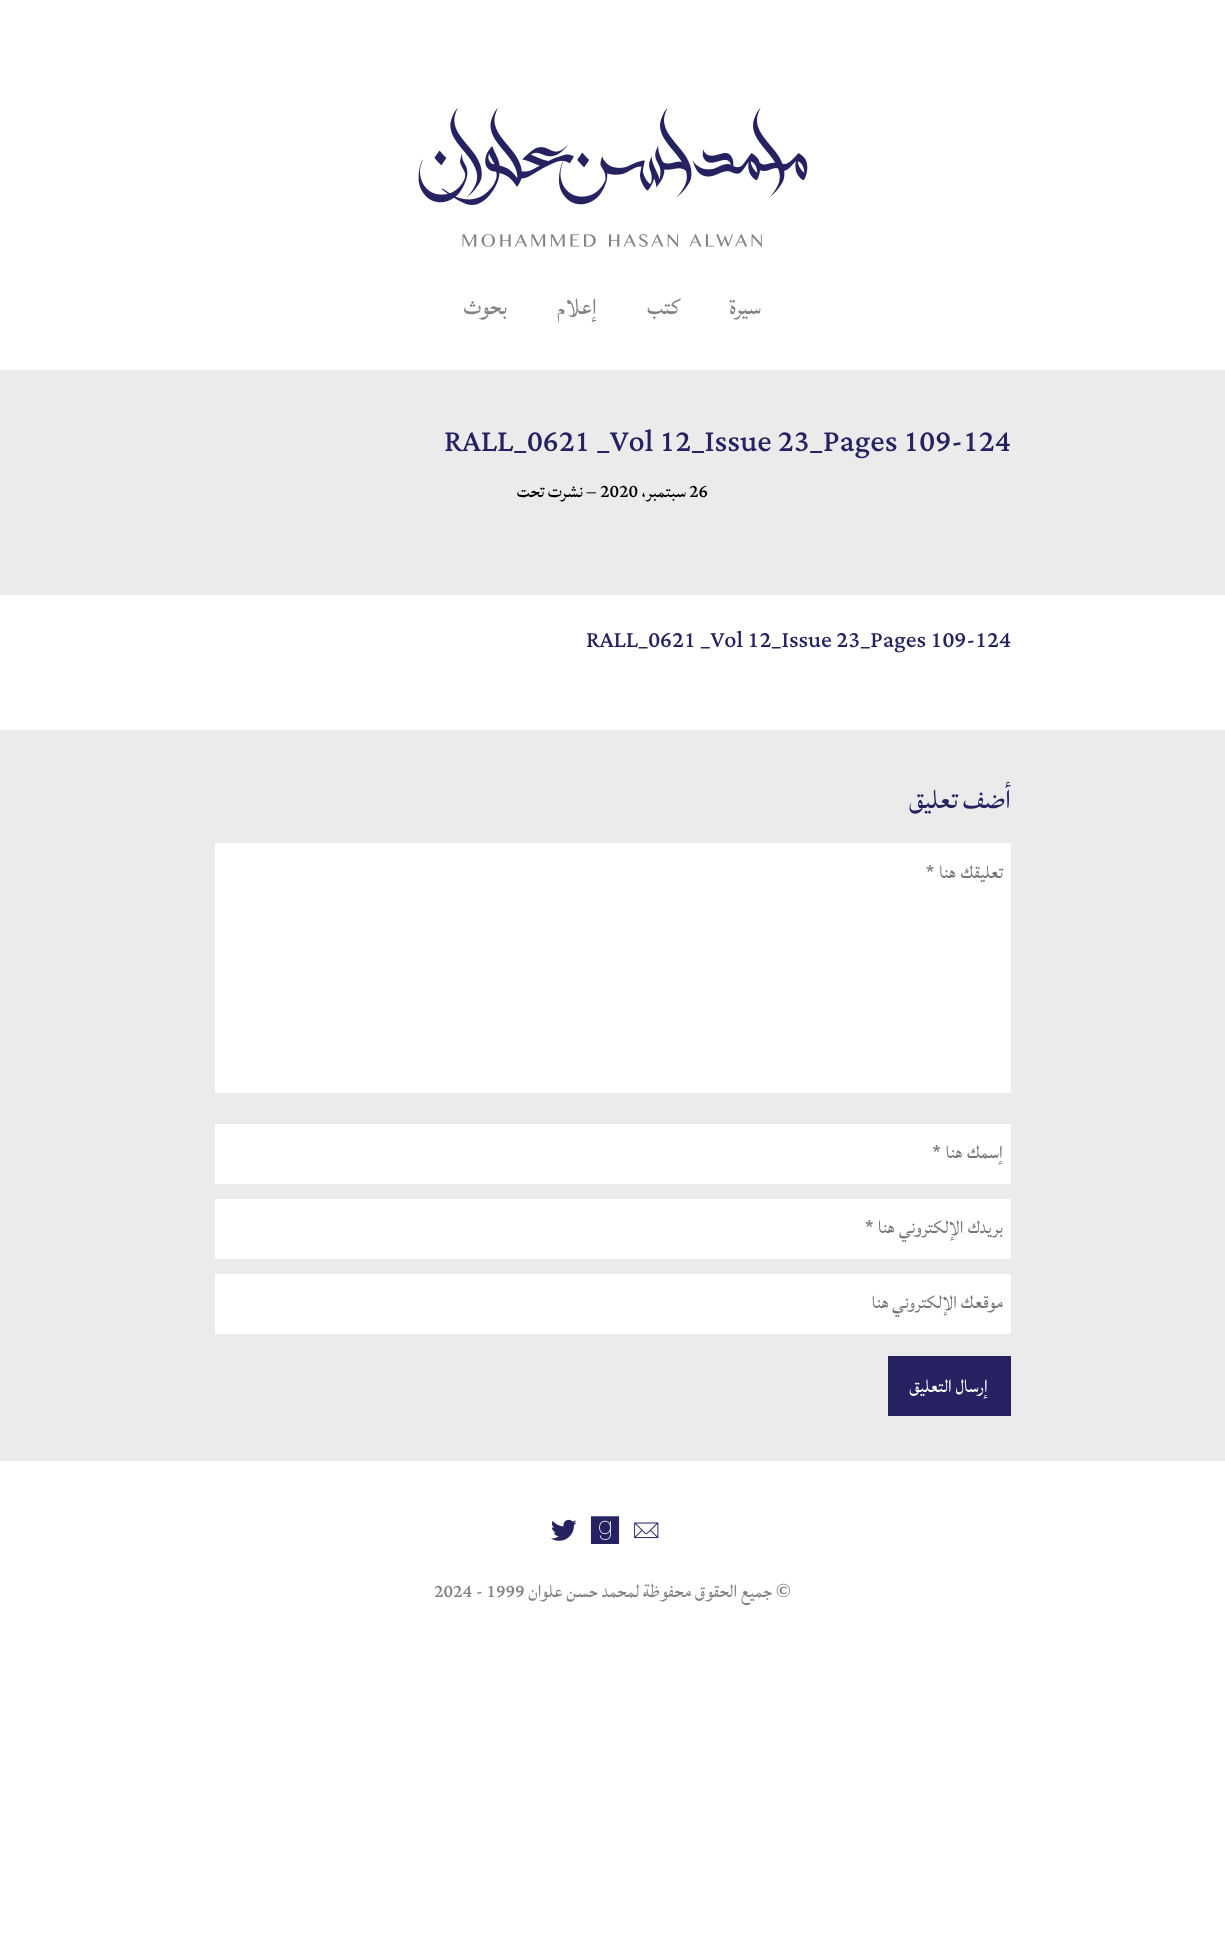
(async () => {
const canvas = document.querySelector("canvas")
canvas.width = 1225
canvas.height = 1957
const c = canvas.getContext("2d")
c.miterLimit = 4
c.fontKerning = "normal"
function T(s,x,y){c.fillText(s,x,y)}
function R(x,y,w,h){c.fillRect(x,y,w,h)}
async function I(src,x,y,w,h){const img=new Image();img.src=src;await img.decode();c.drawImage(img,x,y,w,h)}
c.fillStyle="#fff"
R(0,0,1225,1957)
await I("1.png",418,107,390,140)
c.direction="rtl"
c.font="30px Lateef"
c.fillStyle="#808285"
T("سيرة",761,314)
T("كتب",680,314)
T("إعلام",597,314)
T("بحوث",507,314)
c.fillStyle="#ebebeb"
R(0,370,1225,225)
c.direction="ltr"
c.font="40px Lateef"
c.fillStyle="#262262"
T("RALL_0621 _Vol 12_Issue 23_Pages 109-124",444,451)
c.font="24px Lateef"
c.fillStyle="#000"
T("26",689,497)
c.direction="rtl"
T("سبتمبر،",686,497)
c.direction="ltr"
T("2020",600,497)
c.direction="rtl"
T("– نشرت تحت",596,497)
c.direction="ltr"
c.font="30px Lateef"
c.fillStyle="#262262"
T("RALL_0621 _Vol 12_Issue 23_Pages 109-124",586,647)
c.fillStyle="#ebebeb"
R(0,730,1225,731)
c.direction="rtl"
c.font="35px Lateef"
c.fillStyle="#262262"
T("أضف تعليق",1011,808)
c.fillStyle="#fff"
R(215,843,796,250)
c.wordSpacing="1px"
c.font="24px Lateef"
c.fillStyle="#757575"
T("تعليقك هنا *",1003,878)
c.fillStyle="#fff"
R(215,1124,796,60)
c.fillStyle="#757575"
T("إسمك هنا *",1003,1158)
c.fillStyle="#fff"
R(215,1199,796,60)
c.wordSpacing="0.5px"
c.fillStyle="#757575"
T("بريدك الإلكتروني هنا *",1003,1233)
c.fillStyle="#fff"
R(215,1274,796,60)
c.wordSpacing="0px"
c.fillStyle="#757575"
T("موقعك الإلكتروني هنا",1003,1308)
c.fillStyle="#262262"
R(888,1356,123,60)
c.fillStyle="#fff"
T("إرسال التعليق",988,1392)
await I("2.png",634,1522,25,17)
await I("3.png",590,1516,30,28)
await I("4.png",551,1519,26,22)
c.fillStyle="#808285"
T("© جميع الحقوق محفوظة لمحمد حسن علوان",791,1597)
c.direction="ltr"
T("2024 - 1999",434,1597)
})()
